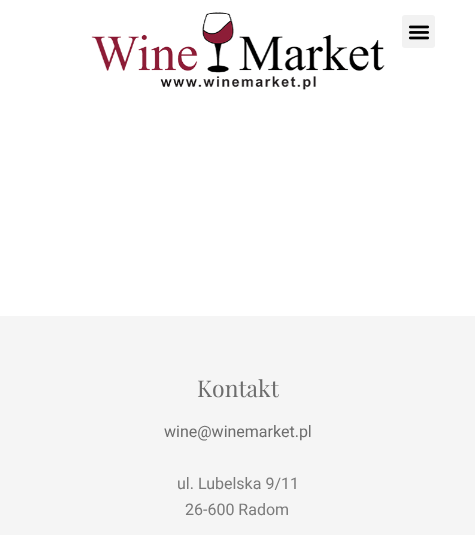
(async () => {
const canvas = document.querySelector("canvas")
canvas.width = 475
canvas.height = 535
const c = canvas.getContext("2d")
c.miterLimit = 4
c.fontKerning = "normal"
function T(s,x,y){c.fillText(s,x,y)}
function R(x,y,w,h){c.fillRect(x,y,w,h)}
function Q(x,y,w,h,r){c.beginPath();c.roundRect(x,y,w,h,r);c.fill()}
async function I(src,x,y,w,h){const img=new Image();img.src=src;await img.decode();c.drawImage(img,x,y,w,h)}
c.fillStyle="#fff"
R(0,0,475,535)
await I("1.png",91,12,294,78)
c.fillStyle="#f2f2f2"
Q(402,15,33,33,3)
await I("2.png",408,25,22,15)
c.fillStyle="#f5f5f5"
R(0,316,475,219)
c.font="23px Playfair Display"
c.fillStyle="#6d6d6d"
T("Kontakt",197,397)
c.font="16px Roboto"
T("wine@winemarket.pl",164,437)
c.fillStyle="#7a7a7a"
T("ul. Lubelska 9/11",177,489)
T("26-600 Radom",185,515)
})()
